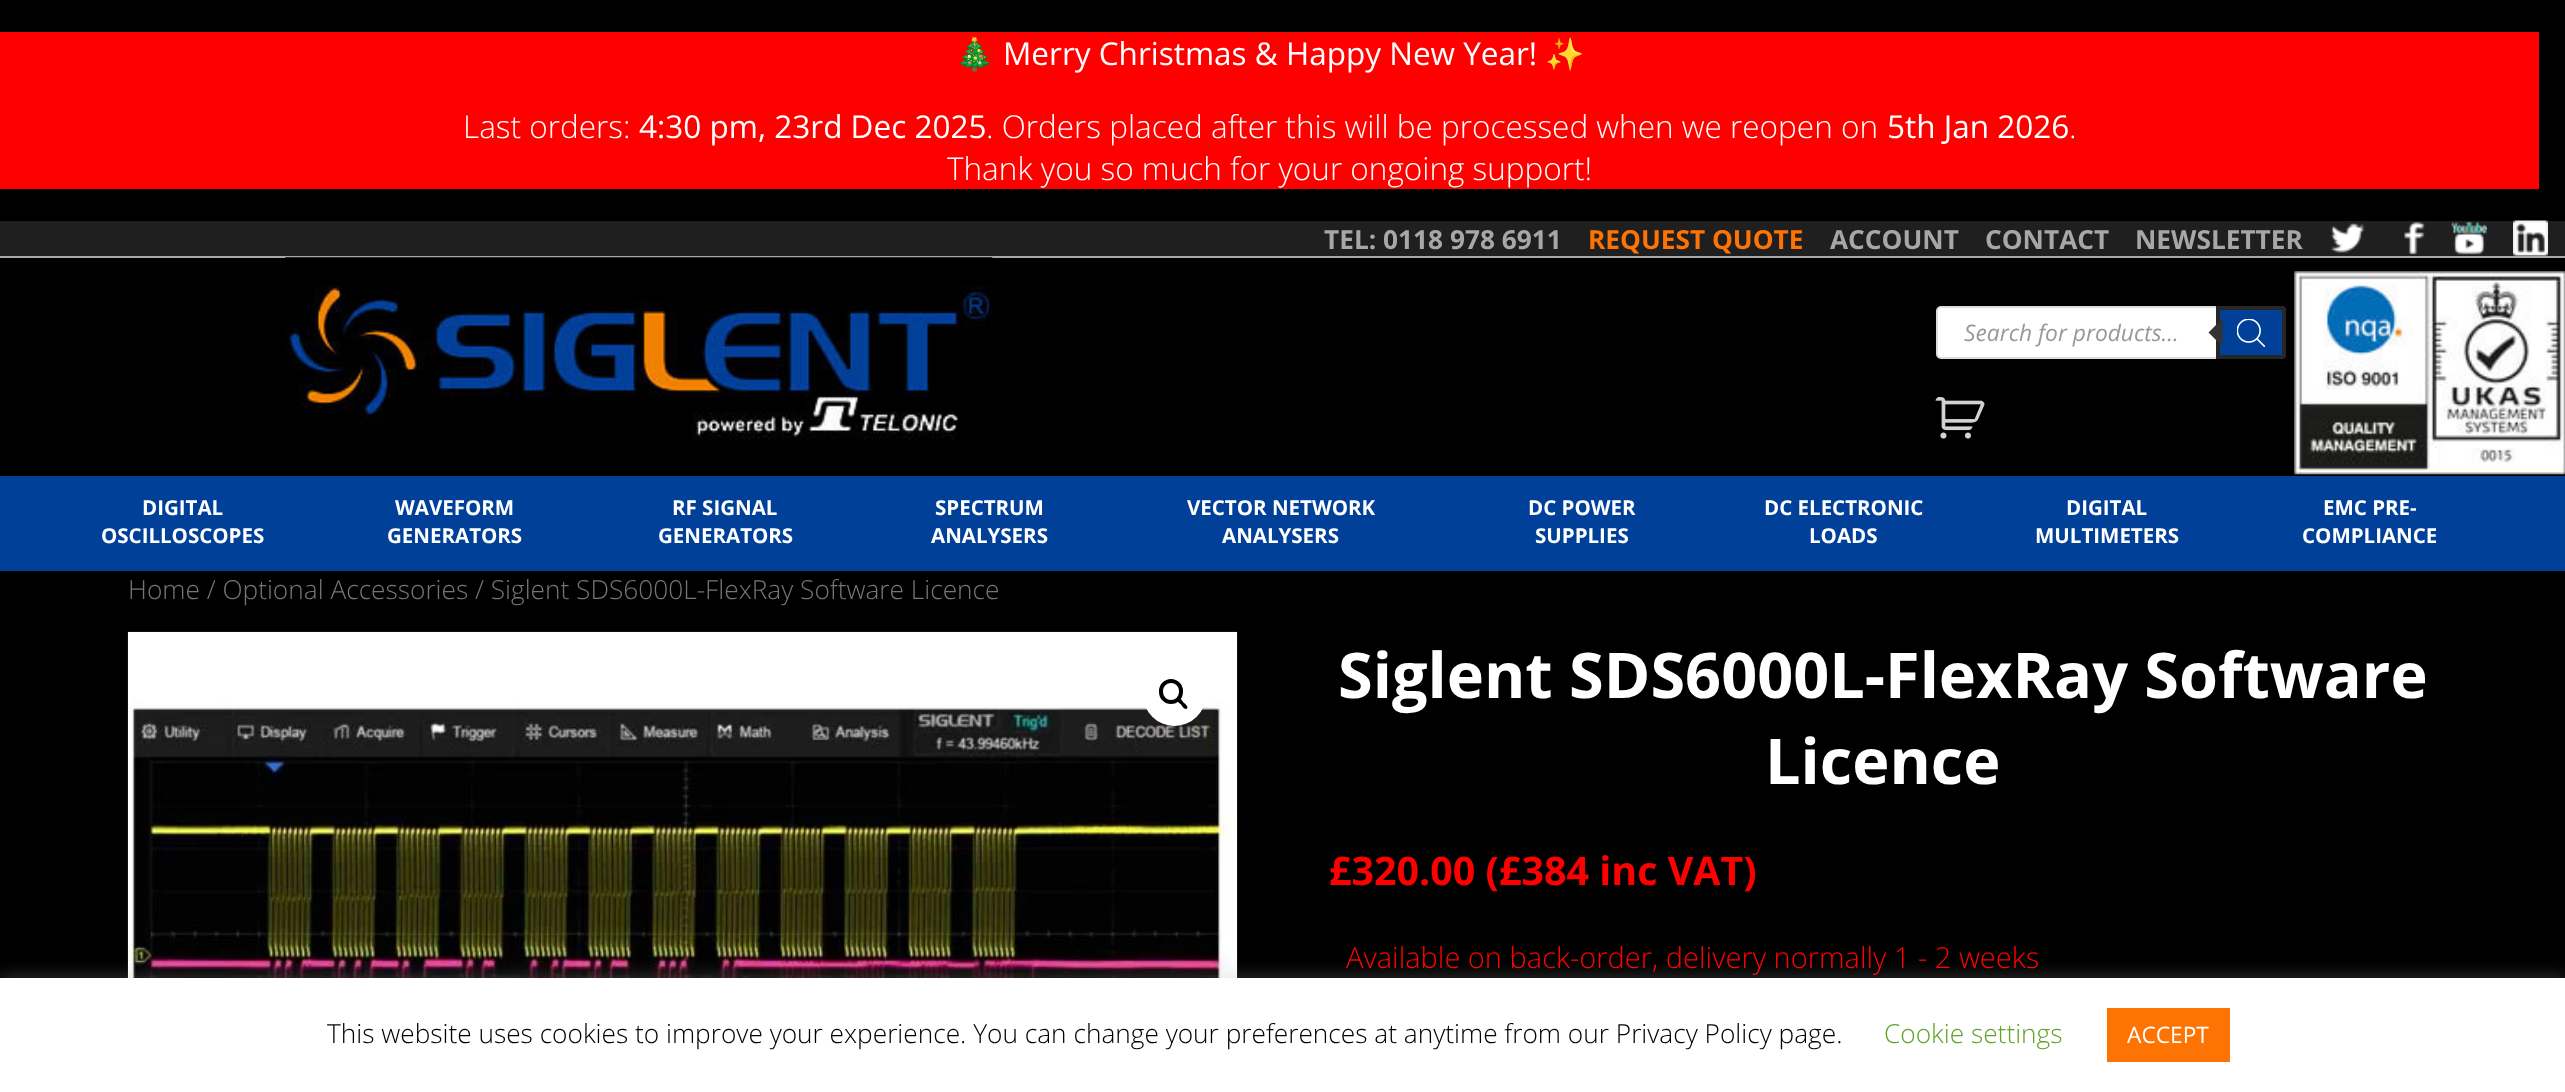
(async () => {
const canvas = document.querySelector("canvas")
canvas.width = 2565
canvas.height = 1092
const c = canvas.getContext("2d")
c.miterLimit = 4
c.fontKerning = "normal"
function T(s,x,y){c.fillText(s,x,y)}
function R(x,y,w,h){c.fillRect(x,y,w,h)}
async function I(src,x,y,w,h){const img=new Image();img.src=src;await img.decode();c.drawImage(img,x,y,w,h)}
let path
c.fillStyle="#000"
R(0,0,2565,1092)
c.fillStyle="#f00"
R(0,32,2539,157)
c.font="31.5px Noto Color Emoji"
c.fillStyle="#fff"
T("🎄",955,65)
c.font="31.5px Open Sans"
T("Merry Christmas & Happy New Year!",1003,65)
c.font="31.5px Noto Color Emoji"
T("✨",1545,65)
c.font="300 31.5px Open Sans"
T("Last orders:",463,138)
c.font="31.5px Open Sans"
T("4:30 pm, 23rd Dec 2025",639,138)
c.font="300 31.5px Open Sans"
T(". Orders placed after this will be processed when we reopen on",986,138)
c.font="31.5px Open Sans"
T("5th Jan 2026",1887,138)
c.font="300 31.5px Open Sans"
T(".",2069,138)
T("Thank you so much for your ongoing support!",947,180)
c.fillStyle="#1f1f1f"
R(0,221,2565,35)
c.font="bold 26.25px Open Sans"
c.fillStyle="#a7a7a7"
T("TEL: 0118 978 6911",1324,249)
c.fillStyle="#fe7404"
T("REQUEST QUOTE",1588,249)
c.fillStyle="#a7a7a7"
T("ACCOUNT",1830,249)
T("CONTACT",1985,249)
T("NEWSLETTER",2135,249)
await I("1.png",2330,223,35,30)
await I("2.png",2404,221,21,34)
await I("3.png",2451,221,36,34)
await I("4.png",2513,220,35,36)
R(0,256,2565,2)
await I("5.png",285,257,708,183)
c.fillStyle="#fff"
c.beginPath()
c.roundRect(1937,307,348,51,4)
c.fill()
c.strokeStyle="#ddd"
c.lineWidth=2
c.stroke()
c.font="italic 22.75px Open Sans"
c.fillStyle="#999"
T("Search for products...",1964,341)
c.fillStyle="#014099"
c.beginPath()
c.roundRect(2218,308,66,49,[0,2,2,0])
c.fill()
c.strokeStyle="#262626"
c.lineWidth=4
c.stroke()
c.fillStyle="#333"
path = new Path2D("M2222.5 318.5v28l-14-14z")
c.fill(path)
await I("6.png",2237,319,28,28)
await I("7.png",1935,397,50,42)
await I("8.png",2294,271,271,204)
c.fillStyle="#014099"
R(0,476,2565,95)
c.font="bold 20.5px Open Sans"
c.fillStyle="#fff"
T("DIGITAL",142,515)
T("OSCILLOSCOPES",101,543)
T("WAVEFORM",395,515)
T("GENERATORS",387,543)
T("RF SIGNAL",672,515)
T("GENERATORS",658,543)
T("SPECTRUM",935,515)
T("ANALYSERS",931,543)
T("VECTOR NETWORK",1187,515)
T("ANALYSERS",1222,543)
T("DC POWER",1528,515)
T("SUPPLIES",1535,543)
T("DC ELECTRONIC",1764,515)
T("LOADS",1809,543)
T("DIGITAL",2066,515)
T("MULTIMETERS",2035,543)
T("EMC PRE-",2323,515)
T("COMPLIANCE",2302,543)
c.font="300 26.25px Open Sans"
c.fillStyle="#767676"
T("Home / Optional Accessories / Siglent SDS6000L-FlexRay Software Licence",128,599)
await I("9.png",127,631,1111,347)
c.fillStyle="#fff"
c.beginPath()
c.arc(1174.5,694.5,31.5,0,7)
c.fill()
c.beginPath()
c.roundRect(1161,681,20,21,10)
c.strokeStyle="#000"
c.stroke()
c.fillStyle="#000"
path = new Path2D("M1177.5 698.5c2-2 5 2.5 6 4c1 1 5.5 4 3.5 6c-2 2-5-2.5-6-4c-1-1-5.5-4-3.5-6z")
c.fill(path)
c.font="bold 63px Open Sans"
c.fillStyle="#fff"
T("Siglent SDS6000L-FlexRay Software",1338,698)
T("Licence",1765,784)
c.font="bold 39.4px Open Sans"
c.fillStyle="#f00"
T("£320.00 (£384 inc VAT)",1329,885)
c.font="300 29px Open Sans"
T("Available on back-order, delivery normally 1 - 2 weeks",1346,968)
c.fillStyle="#acabab4d"
c.filter="blur(9px)"
c.beginPath()
c.rect(0,977,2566,113)
c.fill()
c.filter="none"
c.fillStyle="#fff"
R(0,978,2565,114)
c.font="300 26.25px Open Sans"
c.fillStyle="#000"
T("This website uses cookies to improve your experience. You can change your preferences at anytime from our Privacy Policy page.",327,1043)
c.fillStyle="#62a329"
T("Cookie settings",1884,1043)
c.fillStyle="#fe7404"
R(2107,1008,123,54)
c.font="22.75px Open Sans"
c.fillStyle="#fff"
T("ACCEPT",2127,1043)
})()
